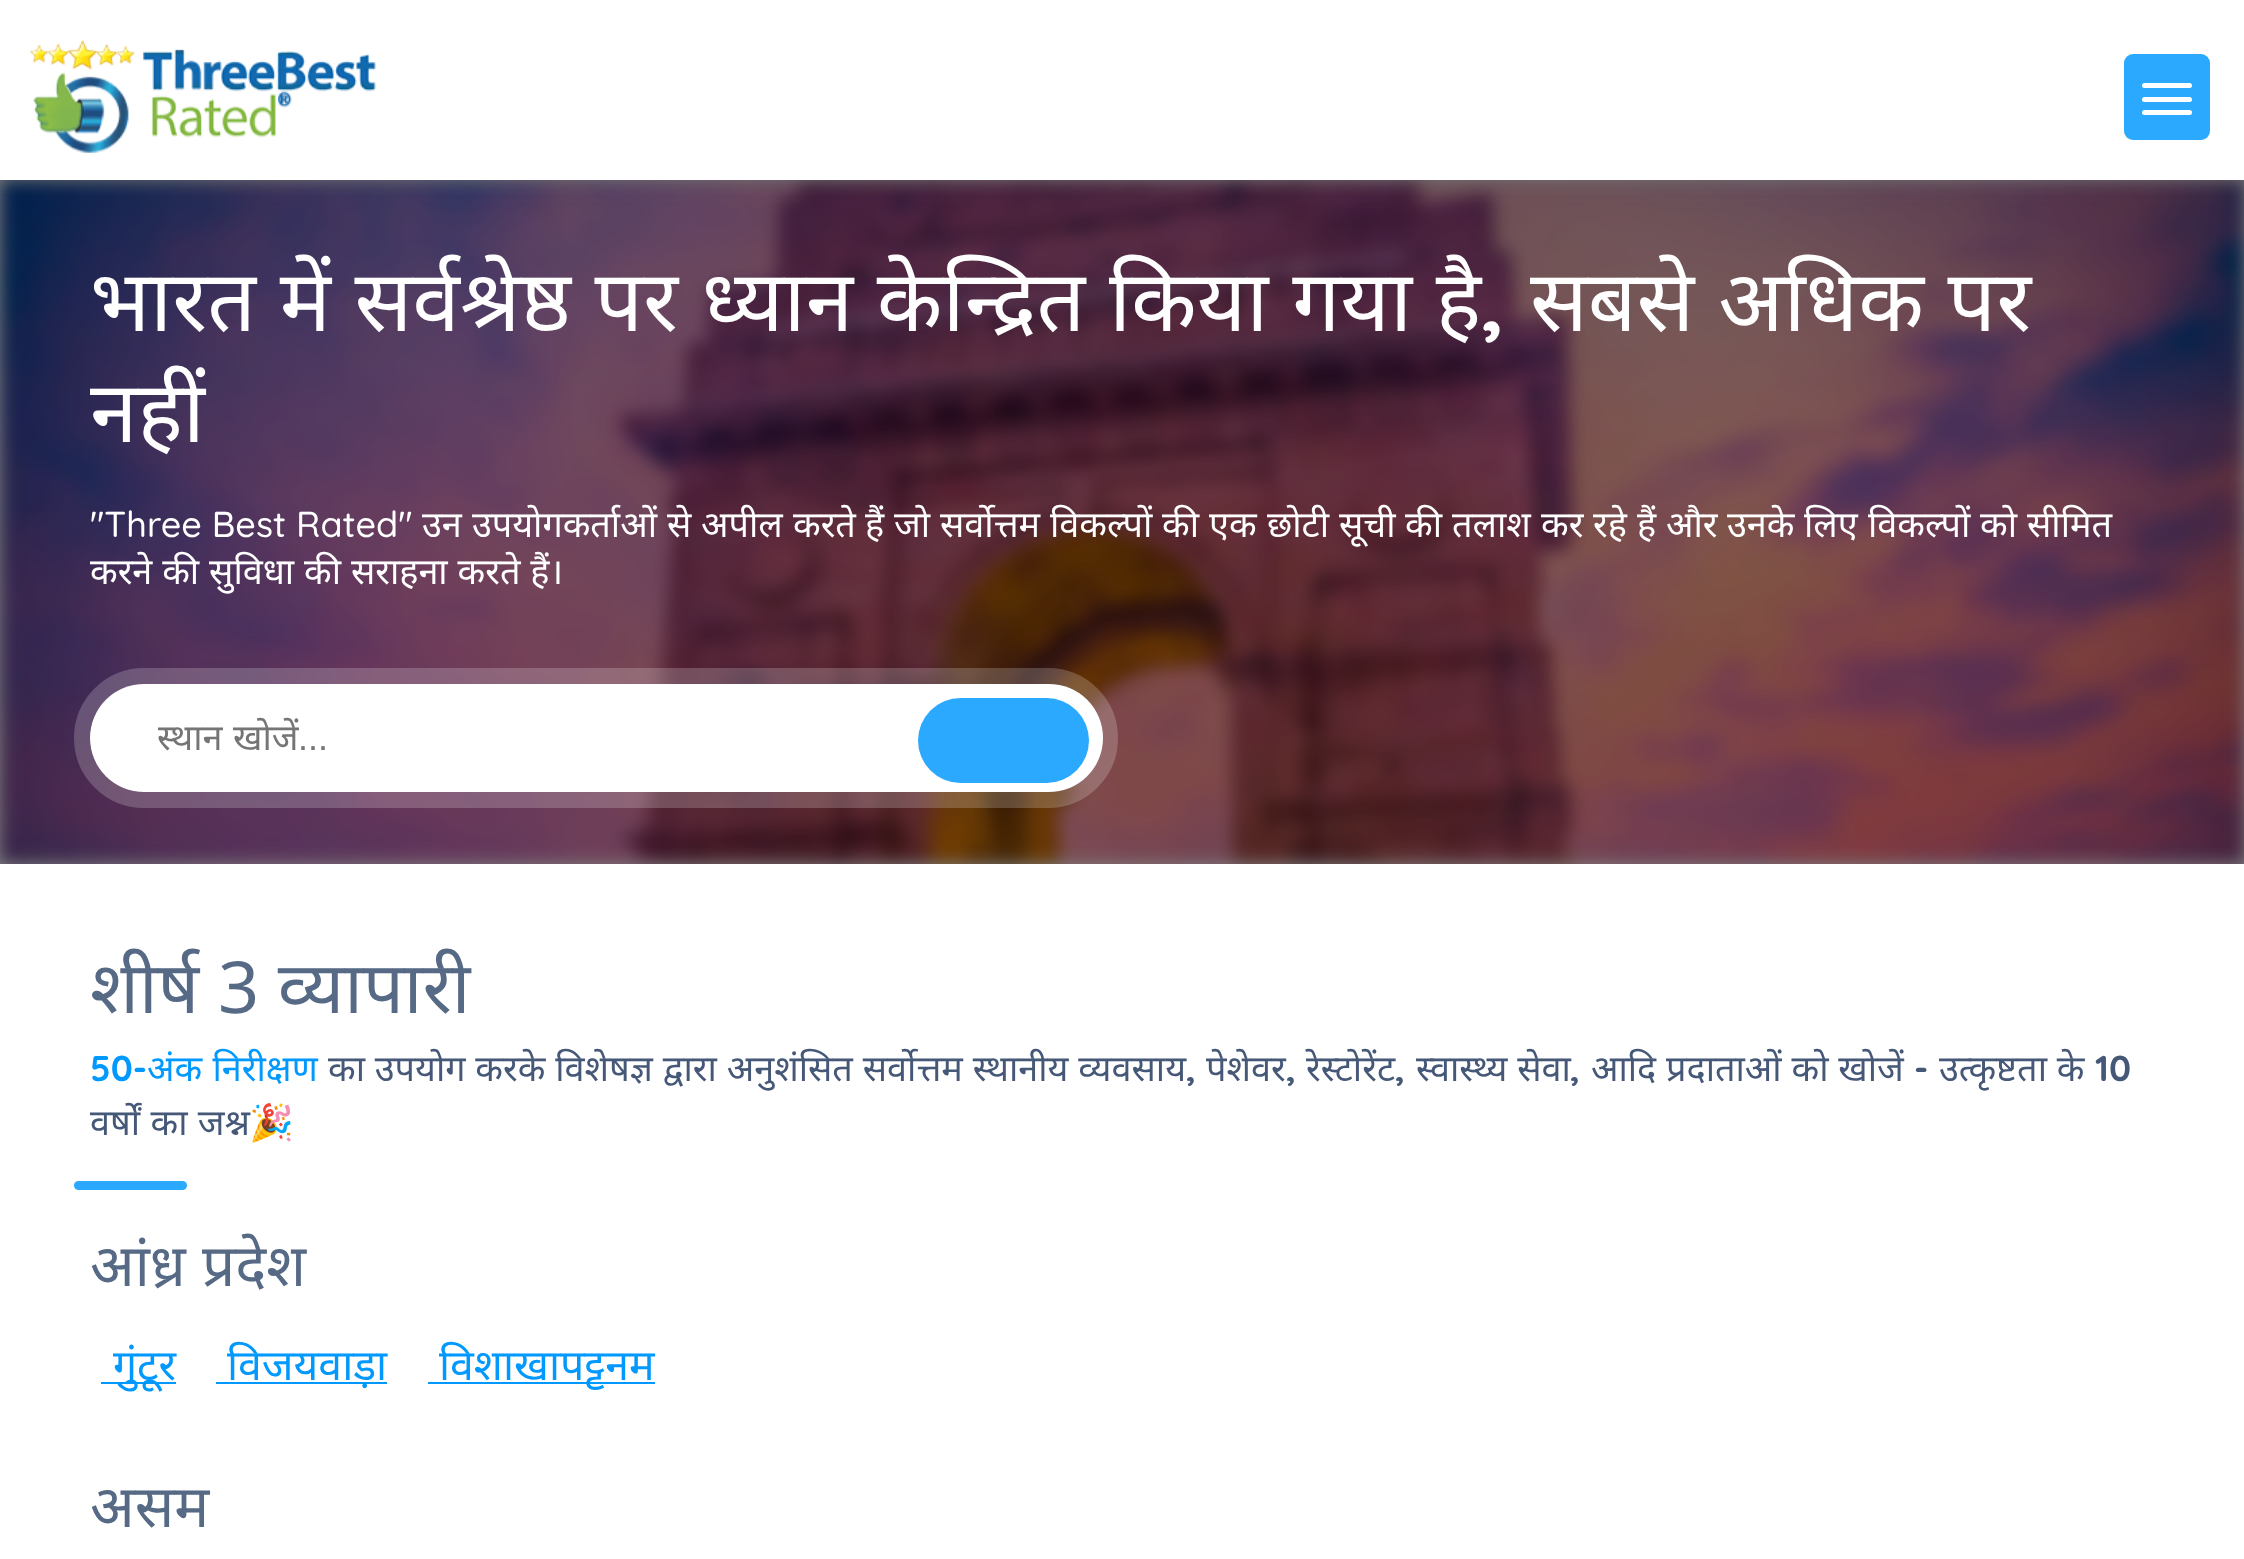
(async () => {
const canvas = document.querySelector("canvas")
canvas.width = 2244
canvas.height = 1559
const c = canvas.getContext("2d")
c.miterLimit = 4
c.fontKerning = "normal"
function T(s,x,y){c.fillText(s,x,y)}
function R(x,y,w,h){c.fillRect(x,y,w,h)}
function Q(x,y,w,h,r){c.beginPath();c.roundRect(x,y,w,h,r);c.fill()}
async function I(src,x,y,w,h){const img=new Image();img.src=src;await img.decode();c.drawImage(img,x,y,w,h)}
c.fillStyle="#fff"
R(0,0,2244,1559)
c.fillStyle="#808080"
R(0,180,2244,684)
await I("2.png",0,180,2244,684)
c.fillStyle="#0000001f"
c.filter="blur(9px)"
c.beginPath()
c.rect(0,0,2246,180)
c.fill()
c.filter="none"
c.fillStyle="#fff"
R(0,0,2244,180)
await I("1.png",29,40,347,113)
c.fillStyle="#2aa9fe"
Q(2124,54,86,86,9)
c.fillStyle="#fff"
Q(2142,83,50,5,2.5)
Q(2142,97,50,5,2.5)
Q(2142,110,50,5,2.5)
c.wordSpacing="1.5px"
c.font="85.5px Noto Sans"
T("भारत में सर्वश्रेष्ठ पर ध्यान केन्द्रित किया गया है",90,331)
c.wordSpacing="0px"
c.font="bold 85.5px Quicksand"
T(",",1481,331)
c.wordSpacing="1.5px"
c.font="85.5px Noto Sans"
T("सबसे अधिक पर",1530,331)
c.wordSpacing="0px"
T("नहीं",90,442)
c.font="500 36px Quicksand"
T("\"Three Best Rated\"",90,537)
c.font="36px Noto Sans"
T("उन",422,537)
T("उपयोगकर्ताओं",472,537)
T("से",667,537)
T("अपील",701,537)
T("करते",793,537)
T("हैं",865,537)
T("जो",894,537)
T("सर्वोत्तम",940,537)
T("विकल्पों",1050,537)
T("की",1162,537)
T("एक",1209,537)
T("छोटी",1267,537)
T("सूची",1339,537)
T("की",1405,537)
T("तलाश",1452,537)
T("कर",1541,537)
T("रहे",1593,537)
T("हैं",1637,537)
T("और",1666,537)
T("उनके",1727,537)
T("लिए",1804,537)
T("विकल्पों",1868,537)
T("को",1980,537)
T("सीमित",2027,537)
c.wordSpacing="0.5px"
T("करने की सुविधा की सराहना करते हैं।",90,584)
c.beginPath()
c.roundRect(82,676,1028,124,62)
c.strokeStyle="#ffffff33"
c.lineWidth=16
c.stroke()
Q(90,684,1013,108,54)
c.save()
c.beginPath()
c.rect(158,711,877,50)
c.clip()
c.wordSpacing="1px"
c.fillStyle="#757575"
T("स्थान खोजें",157,750)
c.restore()
c.wordSpacing="0px"
c.font="36px Liberation Sans"
c.fillStyle="#757575"
T("...",298,750)
c.fillStyle="#2aa9fe"
Q(918,698,171,85,42.5)
c.font="72px Noto Sans"
c.fillStyle="#566985"
T("शीर्ष 3 व्यापारी",90,1013)
c.font="bold 36px Quicksand"
c.fillStyle="#0199fe"
T("50-",90,1081)
c.wordSpacing="1px"
c.font="36px Noto Sans"
T("अंक निरीक्षण",147,1081)
c.wordSpacing="0.5px"
c.fillStyle="#465877"
T("का उपयोग करके विशेषज्ञ द्वारा अनुशंसित सर्वोत्तम स्थानीय व्यवसाय",328,1081)
c.wordSpacing="0px"
c.font="bold 36px Quicksand"
T(",",1186,1081)
c.font="36px Noto Sans"
T("पेशेवर",1206,1081)
c.font="bold 36px Quicksand"
T(",",1286,1081)
c.font="36px Noto Sans"
T("रेस्टोरेंट",1306,1081)
c.wordSpacing="0.5px"
T("स्वास्थ्य सेवा",1416,1081)
T("आदि प्रदाताओं को खोजें",1591,1081)
c.wordSpacing="0px"
c.font="bold 36px Quicksand"
T("-",1914,1081)
c.wordSpacing="0.5px"
c.font="36px Noto Sans"
T("उत्कृष्टता के",1939,1081)
c.wordSpacing="0px"
c.font="bold 36px Quicksand"
T("10",2095,1081)
T(",",1395,1081)
T(",",1570,1081)
c.wordSpacing="1px"
c.font="36px Noto Sans"
T("वर्षों का जश्न",90,1135)
c.wordSpacing="0px"
c.font="bold 36px Noto Color Emoji"
T("🎉",249,1135)
c.fillStyle="#2aa9fe"
Q(74,1181,113,9,4.5)
c.wordSpacing="1px"
c.font="58.5px Noto Sans"
c.fillStyle="#566985"
T("आंध्र प्रदेश",90,1286)
c.fillStyle="#0199fe"
R(101,1382,75,2)
c.wordSpacing="0px"
c.font="42.75px Noto Sans"
T("गुंटूर",113,1380)
R(216,1382,171,2)
T("विजयवाड़ा",227,1380)
R(428,1382,227,2)
T("विशाखापट्टनम",439,1380)
c.font="58.5px Noto Sans"
c.fillStyle="#566985"
T("असम",90,1527)
})()
